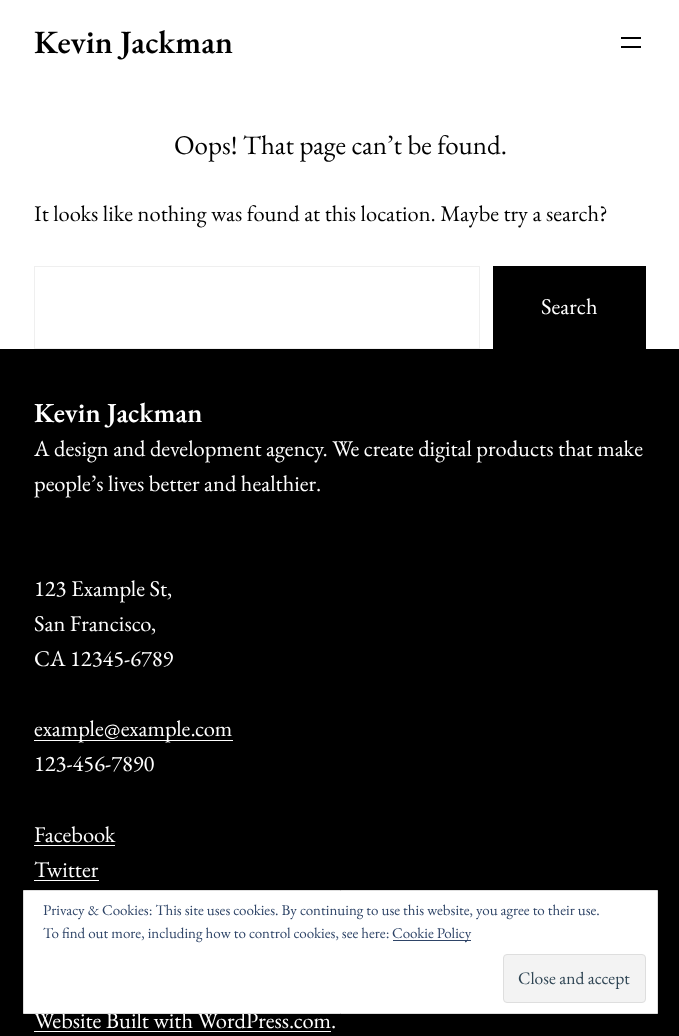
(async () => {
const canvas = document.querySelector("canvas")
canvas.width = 679
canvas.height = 1036
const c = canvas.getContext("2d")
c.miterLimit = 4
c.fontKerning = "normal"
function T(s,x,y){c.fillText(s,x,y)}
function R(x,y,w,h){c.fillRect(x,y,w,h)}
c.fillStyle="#fff"
R(0,0,679,1036)
c.font="600 32.5px EB Garamond"
c.fillStyle="#000"
T("Kevin Jackman",34,53)
R(621,37,20,2)
R(621,46,20,2)
c.font="27px EB Garamond"
T("Oops! That page can’t be found.",174,154)
c.font="22.5px EB Garamond"
T("It looks like nothing was found at this location. Maybe try a search?",34,221)
c.strokeStyle="#efefef"
c.strokeRect(34.5,266.5,445,82)
R(493,266,153,83)
c.fillStyle="#fff"
T("Search",541,314)
c.fillStyle="#000"
R(0,349,679,687)
c.font="600 27.5px EB Garamond"
c.fillStyle="#fff"
T("Kevin Jackman",34,422)
c.font="22.5px EB Garamond"
T("A design and development agency. We create digital products that make",34,456)
T("people’s lives better and healthier.",34,491)
T("123 Example St,",34,596)
T("San Francisco,",34,631)
T("CA 12345-6789",34,666)
R(34,740,199,1)
T("example@example.com",34,736)
T("123-456-7890",34,771)
T("Facebook",34,842)
R(34,845,81,1)
T("Twitter",34,877)
R(34,880,65,1)
T("Website Built with WordPress.com.",34,1028)
R(34,1031,297,1)
c.beginPath()
c.rect(23.5,890.5,634,123)
c.fill()
c.strokeStyle="#dedede"
c.stroke()
c.font="15px EB Garamond"
c.fillStyle="#2e4467"
T("Privacy & Cookies: This site uses cookies. By continuing to use this website, you agree to their use.",43,915)
T("To find out more, including how to control cookies, see here:",43,938)
R(393,940,78,1)
T("Cookie Policy",392,938)
c.fillStyle="#f3f3f3"
c.beginPath()
c.roundRect(503.5,954.5,142,48,3.5)
c.fill()
c.stroke()
c.font="17.5px EB Garamond"
c.fillStyle="#2e4453"
T("Close and accept",518,984)
})()
